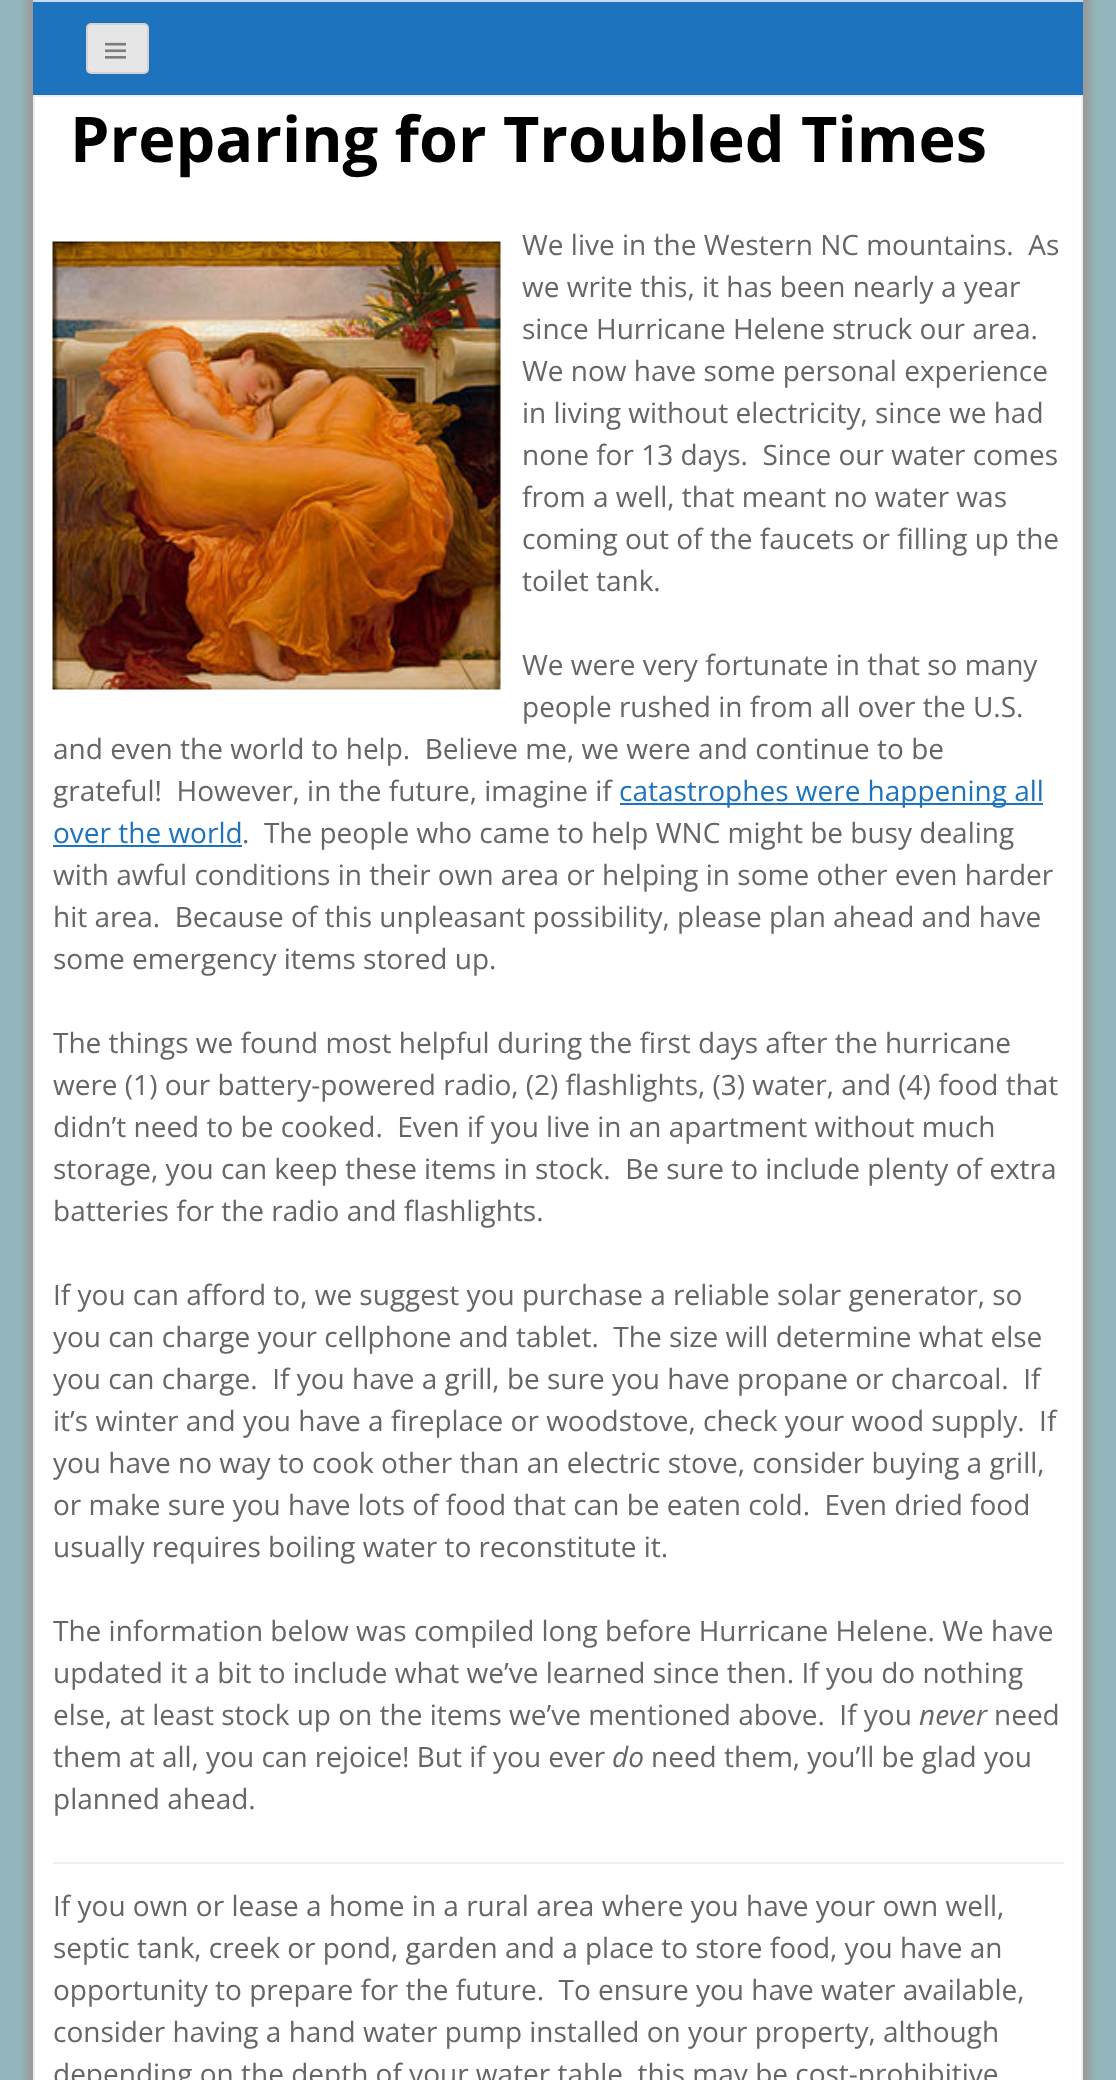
(async () => {
const canvas = document.querySelector("canvas")
canvas.width = 1116
canvas.height = 2080
const c = canvas.getContext("2d")
c.miterLimit = 4
c.fontKerning = "normal"
function T(s,x,y){c.fillText(s,x,y)}
function R(x,y,w,h){c.fillRect(x,y,w,h)}
async function I(src,x,y,w,h){const img=new Image();img.src=src;await img.decode();c.drawImage(img,x,y,w,h)}
c.fillStyle="#93b5bc"
R(0,0,1116,2080)
c.fillStyle="#999"
c.filter="blur(3.5px)"
c.beginPath()
c.rect(26,-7,1064,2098)
c.fill()
c.filter="none"
c.fillStyle="#1e73be"
R(33,2,1050,93)
c.fillStyle="#c9daf2"
R(33,0,1050,2)
c.fillStyle="#4040401a"
c.filter="blur(2px)"
c.beginPath()
c.roundRect(86,25,63,50,5)
c.fill()
c.filter="none"
c.fillStyle="#e6e6e6"
c.beginPath()
c.roundRect(87,24,61,49,4)
c.fill()
c.strokeStyle="#d2d2d2"
c.lineWidth=2
c.stroke()
await I("1.png",105,42,21,17)
c.fillStyle="#fff"
c.beginPath()
c.rect(34,96,1048,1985)
c.fill()
c.strokeStyle="#eee"
c.stroke()
c.font="bold 63px Open Sans"
c.fillStyle="#000"
T("Preparing for Troubled Times",70,162)
await I("2.png",52,241,449,449)
c.font="28px Open Sans"
c.fillStyle="#666"
T("We live in the Western NC mountains.  As",522,255)
T("we write this, it has been nearly a year",522,297)
T("since Hurricane Helene struck our area.",522,339)
T("We now have some personal experience",522,381)
T("in living without electricity, since we had",522,423)
T("none for 13 days.  Since our water comes",522,465)
T("from a well, that meant no water was",522,507)
T("coming out of the faucets or filling up the",522,549)
T("toilet tank.",522,591)
T("We were very fortunate in that so many",522,675)
T("people rushed in from all over the U.S.",522,717)
T("and even the world to help.  Believe me, we were and continue to be",53,759)
T("grateful!  However, in the future, imagine if",53,801)
c.fillStyle="#1e73be"
R(620,803,423,2)
T("catastrophes were happening all",619,801)
T("over the world",53,843)
R(53,845,189,2)
c.fillStyle="#666"
T(".  The people who came to help WNC might be busy dealing",242,843)
T("with awful conditions in their own area or helping in some other even harder",53,885)
T("hit area.  Because of this unpleasant possibility, please plan ahead and have",53,927)
T("some emergency items stored up.",53,969)
T("The things we found most helpful during the first days after the hurricane",53,1053)
T("were (1) our battery-powered radio, (2) flashlights, (3) water, and (4) food that",53,1095)
T("didn’t need to be cooked.  Even if you live in an apartment without much",53,1137)
T("storage, you can keep these items in stock.  Be sure to include plenty of extra",53,1179)
T("batteries for the radio and flashlights.",53,1221)
T("If you can afford to, we suggest you purchase a reliable solar generator, so",53,1305)
T("you can charge your cellphone and tablet.  The size will determine what else",53,1347)
T("you can charge.  If you have a grill, be sure you have propane or charcoal.  If",53,1389)
T("it’s winter and you have a fireplace or woodstove, check your wood supply.  If",53,1431)
T("you have no way to cook other than an electric stove, consider buying a grill,",53,1473)
T("or make sure you have lots of food that can be eaten cold.  Even dried food",53,1515)
T("usually requires boiling water to reconstitute it.",53,1557)
T("The information below was compiled long before Hurricane Helene. We have",53,1641)
T("updated it a bit to include what we’ve learned since then. If you do nothing",53,1683)
T("else, at least stock up on the items we’ve mentioned above.  If you",53,1725)
c.font="italic 28px Open Sans"
T("never",919,1725)
c.font="28px Open Sans"
T("need",994,1725)
T("them at all, you can rejoice! But if you ever",53,1767)
c.font="italic 28px Open Sans"
T("do",612,1767)
c.font="28px Open Sans"
T("need them, you’ll be glad you",651,1767)
T("planned ahead.",53,1809)
c.fillStyle="#eee"
R(53,1862,1011,2)
c.fillStyle="#666"
T("If you own or lease a home in a rural area where you have your own well,",53,1916)
T("septic tank, creek or pond, garden and a place to store food, you have an",53,1958)
T("opportunity to prepare for the future.  To ensure you have water available,",53,2000)
T("consider having a hand water pump installed on your property, although",53,2042)
T("depending on the depth of your water table, this may be cost-prohibitive",53,2084)
})()
